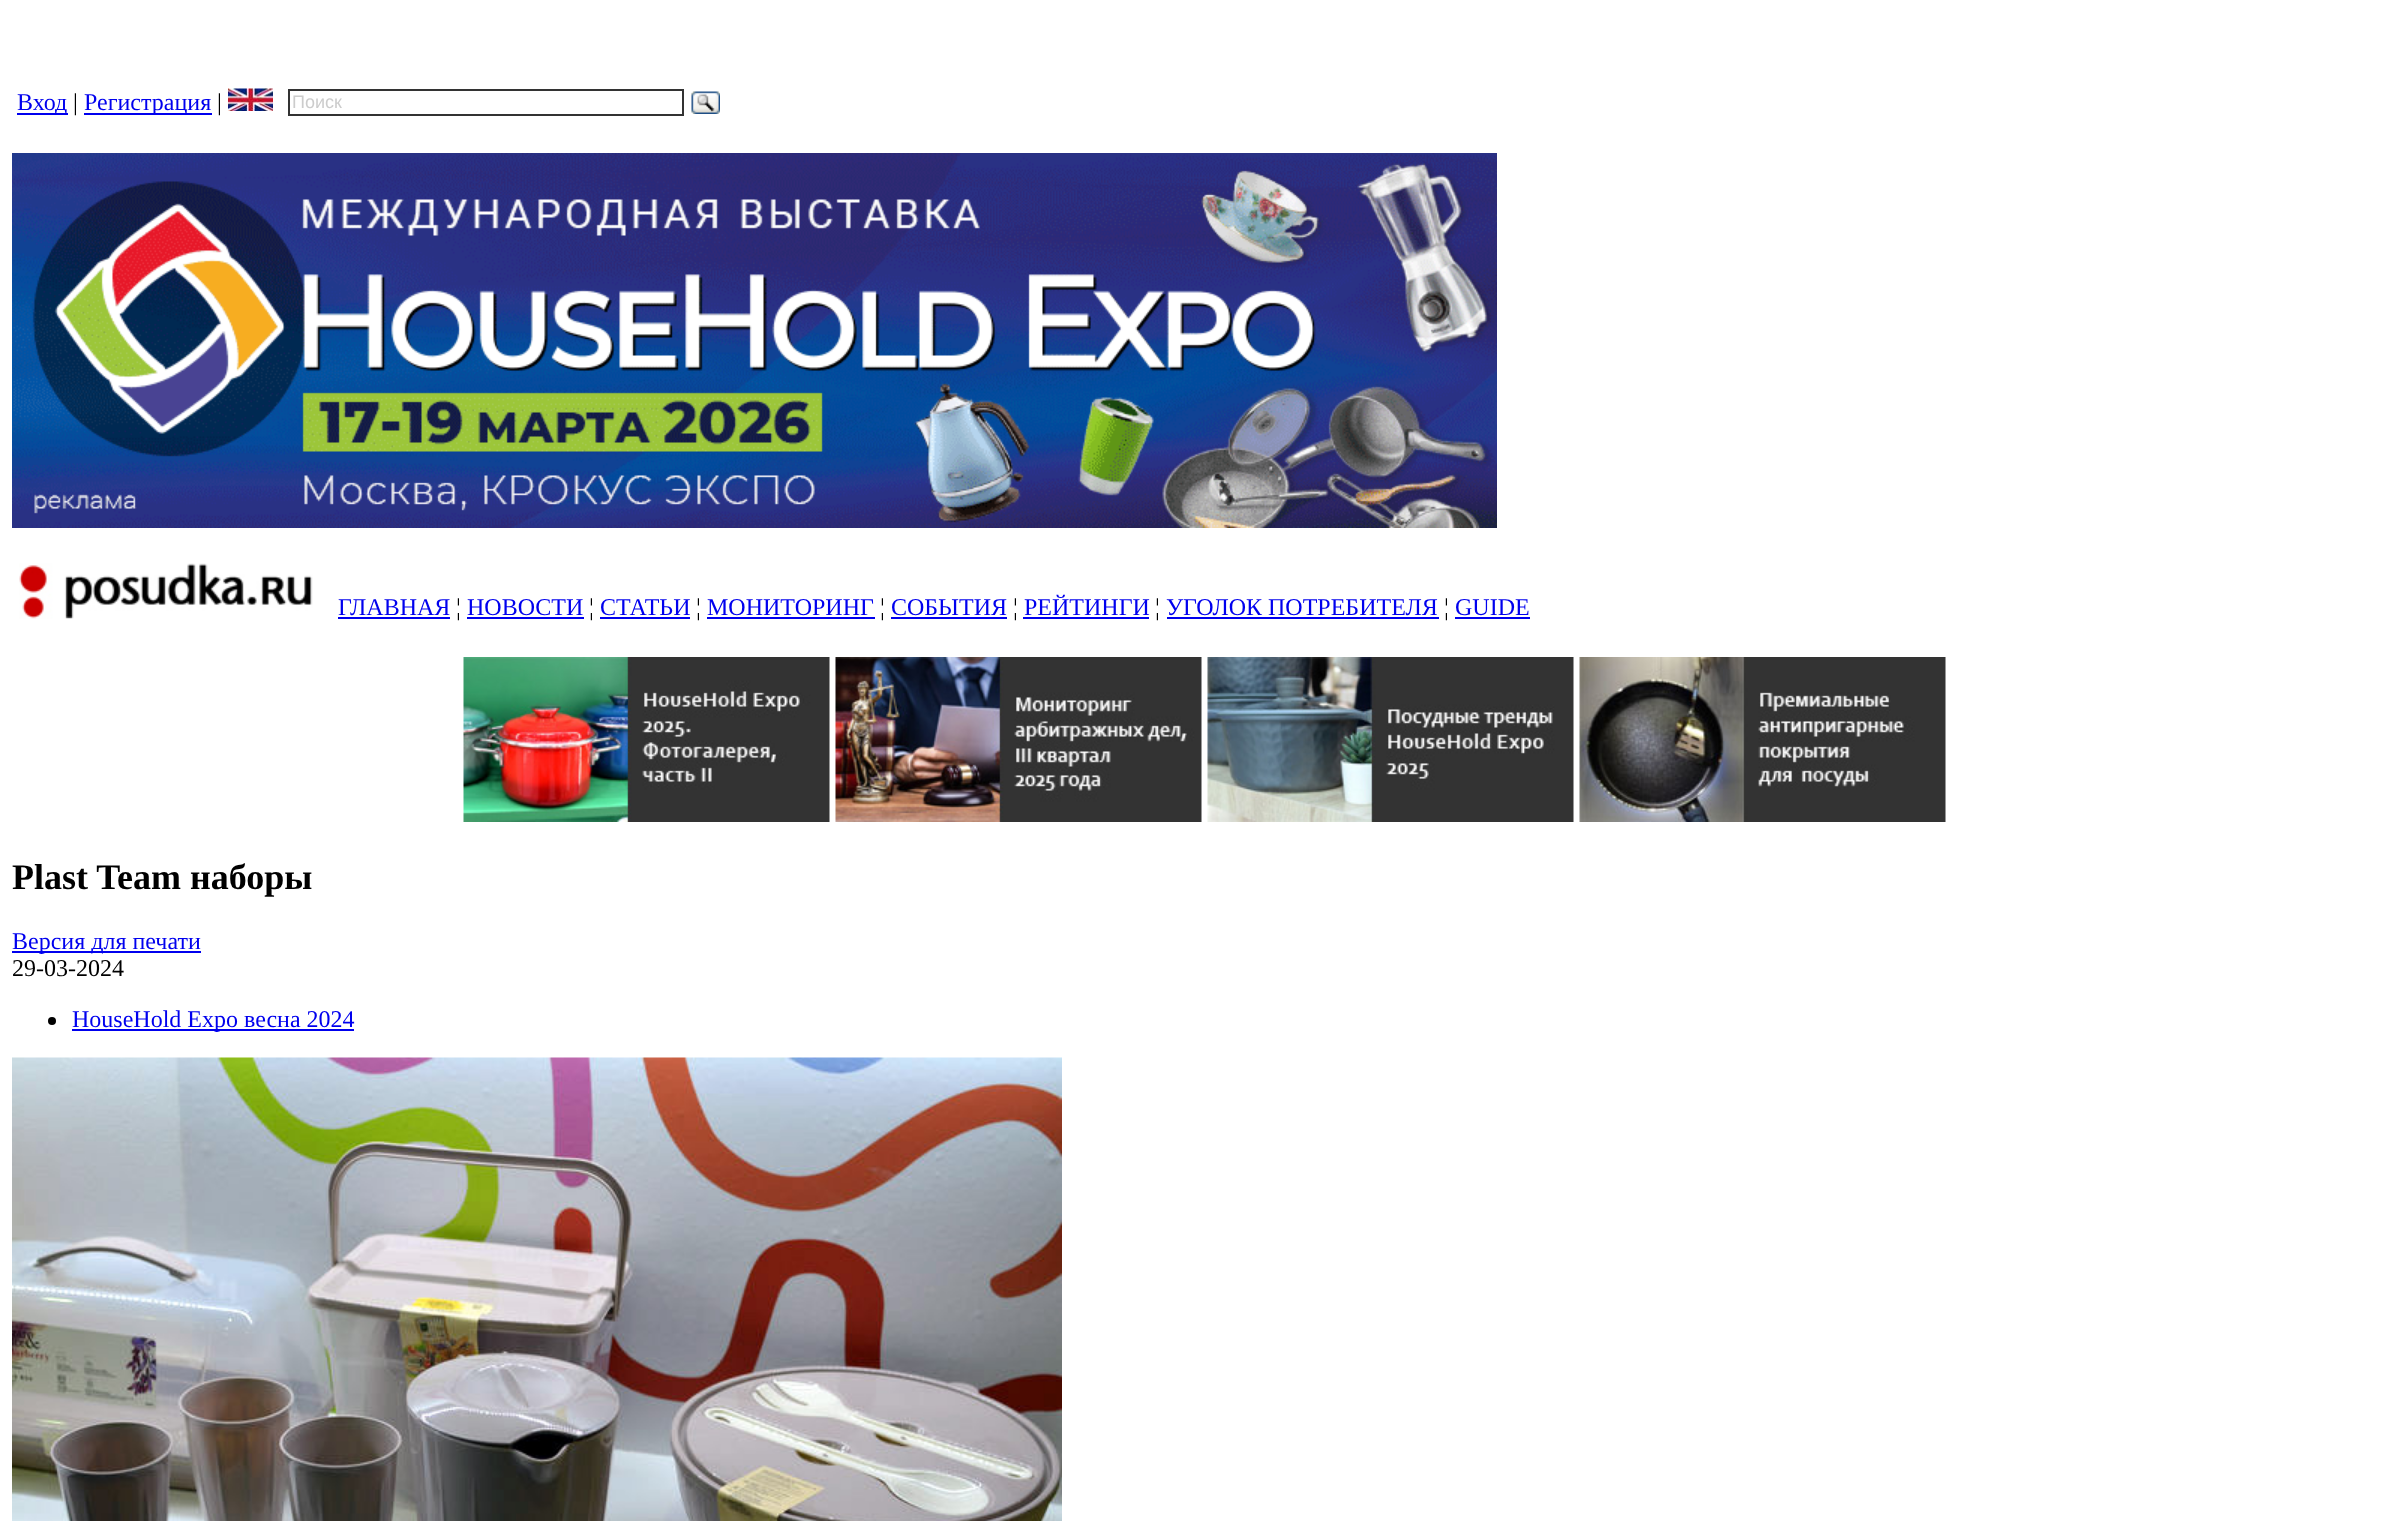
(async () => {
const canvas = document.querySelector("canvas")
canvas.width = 2407
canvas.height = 1521
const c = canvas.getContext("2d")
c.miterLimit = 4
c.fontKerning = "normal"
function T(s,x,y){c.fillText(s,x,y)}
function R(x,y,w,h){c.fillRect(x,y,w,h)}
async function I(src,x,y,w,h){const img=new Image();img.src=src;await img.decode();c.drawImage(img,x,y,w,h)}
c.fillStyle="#fff"
R(0,0,2407,1521)
c.fillStyle="#00e"
R(17,113,51,2)
c.font="24px Liberation Serif"
T("Вход",17,110)
c.fillStyle="#000"
T("|",73,110)
c.fillStyle="#00e"
R(84,113,128,2)
T("Регистрация",84,110)
c.fillStyle="#000"
T("|",217,110)
await I("1.png",228,88,45,23)
c.strokeStyle="#333"
c.lineWidth=2
c.strokeRect(289,90,394,25)
c.font="18px Liberation Sans"
c.fillStyle="#ccc"
T("Поиск",292,108)
await I("2.png",691,91,29,23)
await I("3.png",12,153,1485,375)
await I("4.png",19,563,294,56)
c.font="24px Liberation Serif"
c.fillStyle="#00e"
T("ГЛАВНАЯ",338,615)
R(338,617,112,2)
c.fillStyle="#000"
T("¦",456,615)
c.fillStyle="#00e"
T("НОВОСТИ",467,615)
R(467,617,117,2)
c.fillStyle="#000"
T("¦",589,615)
c.fillStyle="#00e"
T("СТАТЬИ",600,615)
R(600,617,90,2)
c.fillStyle="#000"
T("¦",696,615)
c.fillStyle="#00e"
T("МОНИТОРИНГ",707,615)
R(707,617,168,2)
c.fillStyle="#000"
T("¦",880,615)
c.fillStyle="#00e"
T("СОБЫТИЯ",891,615)
R(891,617,116,2)
c.fillStyle="#000"
T("¦",1013,615)
c.fillStyle="#00e"
T("РЕЙТИНГИ",1024,615)
R(1023,617,126,2)
c.fillStyle="#000"
T("¦",1155,615)
c.fillStyle="#00e"
T("УГОЛОК ПОТРЕБИТЕЛЯ",1166,615)
R(1167,617,272,2)
c.fillStyle="#000"
T("¦",1444,615)
c.fillStyle="#00e"
T("GUIDE",1455,615)
R(1455,617,75,2)
await I("5.png",463,657,367,165)
await I("6.png",835,657,367,165)
await I("7.png",1207,657,367,165)
await I("8.png",1579,657,367,165)
c.font="bold 36px Liberation Serif"
c.fillStyle="#000"
T("Plast Team наборы",12,889)
c.fillStyle="#00e"
R(12,951,189,2)
c.font="24px Liberation Serif"
T("Версия для печати",12,949)
c.fillStyle="#000"
T("29-03-2024",12,976)
c.beginPath()
c.arc(52,1021,4,0,7)
c.fill()
c.fillStyle="#00e"
R(72,1029,282,2)
T("HouseHold Expo весна 2024",72,1027)
await I("9.png",12,1057,1050,464)
})()
